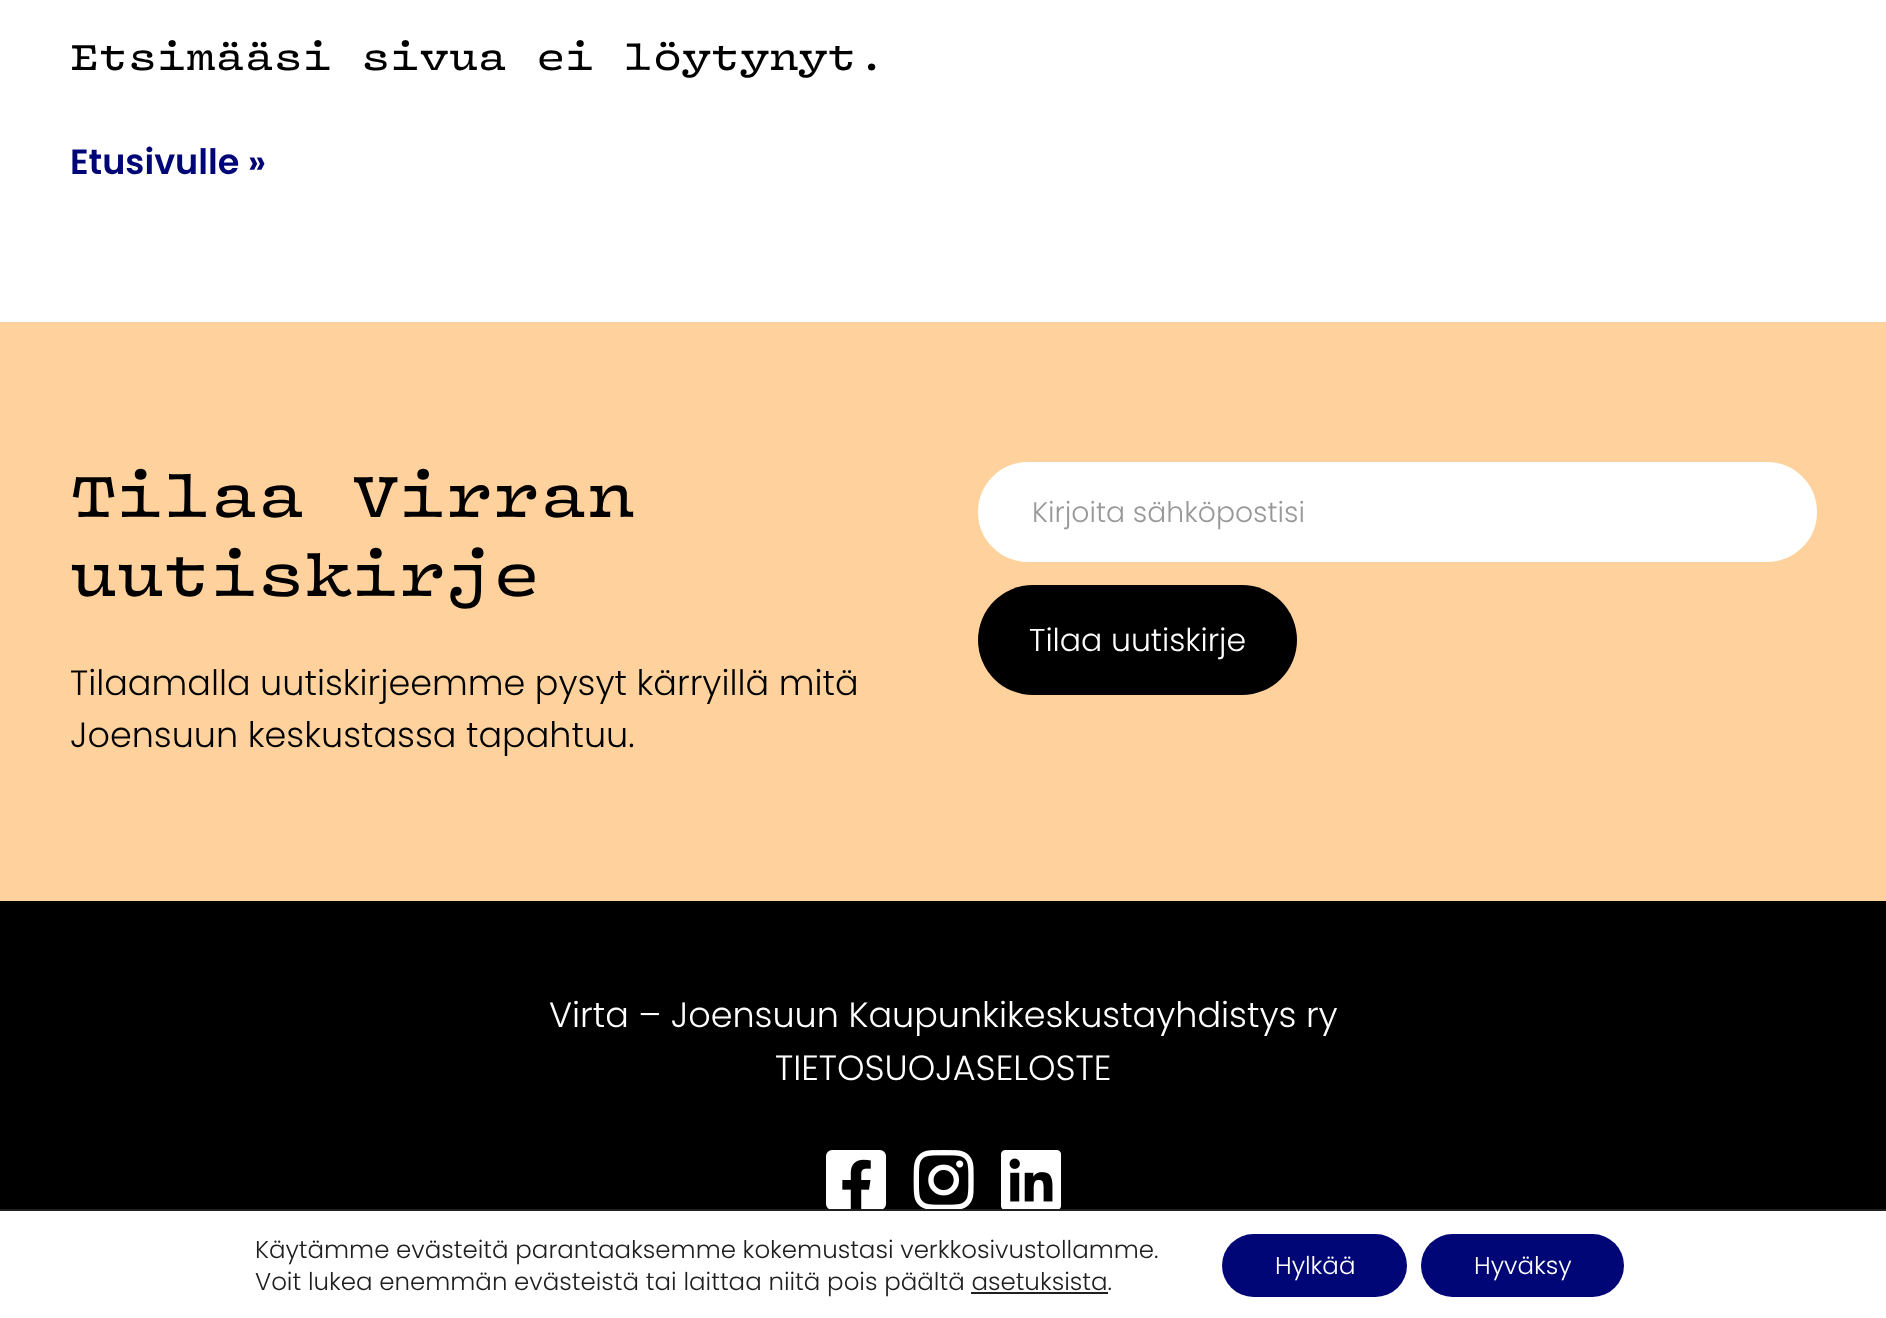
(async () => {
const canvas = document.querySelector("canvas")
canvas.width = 1886
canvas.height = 1318
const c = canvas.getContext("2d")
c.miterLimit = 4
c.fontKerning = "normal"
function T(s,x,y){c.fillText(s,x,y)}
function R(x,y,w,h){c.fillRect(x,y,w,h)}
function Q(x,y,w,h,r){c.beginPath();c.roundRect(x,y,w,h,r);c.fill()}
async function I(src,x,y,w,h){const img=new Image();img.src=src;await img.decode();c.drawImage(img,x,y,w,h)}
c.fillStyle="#fff"
R(0,0,1886,1318)
c.font="39.4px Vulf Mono"
c.fillStyle="#000"
T("Etsimääsi sivua ei löytynyt.",70,70)
c.font="600 35px Poppins"
c.fillStyle="#010676"
T("Etusivulle »",70,174)
c.fillStyle="#ffd29d"
R(0,322,1886,579)
c.font="63.6px Vulf Mono"
c.fillStyle="#000"
T("Tilaa Virran",70,517)
T("uutiskirje",70,596)
c.font="300 35px Poppins"
T("Tilaamalla uutiskirjeemme pysyt kärryillä mitä",70,695)
T("Joensuun keskustassa tapahtuu.",70,747)
c.fillStyle="#fff"
c.beginPath()
c.roundRect(980,464,835,96,48)
c.fill()
c.strokeStyle="#fff"
c.lineWidth=4
c.stroke()
c.font="300 28.25px Poppins"
c.fillStyle="#999"
T("Kirjoita sähköpostisi",1032,522)
c.fillStyle="#000"
Q(978,585,319,110,55)
c.font="300 31.5px Poppins"
c.fillStyle="#fff"
T("Tilaa uutiskirje",1029,651)
c.fillStyle="#000"
R(0,901,1886,308)
c.font="300 35px Poppins"
c.fillStyle="#fff"
T("Virta – Joensuun Kaupunkikeskustayhdistys ry",549,1027)
T("TIETOSUOJASELOSTE",775,1080)
await I("1.png",826,1150,61,59)
await I("2.png",913,1150,61,59)
await I("3.png",1001,1150,61,59)
c.fillStyle="#202020"
R(0,1209,1886,2)
c.font="300 24.5px Poppins"
T("Käytämme evästeitä parantaaksemme kokemustasi verkkosivustollamme.",255,1258)
T("Voit lukea enemmän evästeistä tai laittaa niitä pois päältä asetuksista.",255,1290)
R(971,1292,137,2)
c.fillStyle="#010676"
Q(1222,1234,185,63,31.5)
c.fillStyle="#fff"
T("Hylkää",1275,1274)
c.fillStyle="#010676"
Q(1421,1234,203,63,31.5)
c.fillStyle="#fff"
T("Hyväksy",1474,1274)
})()
